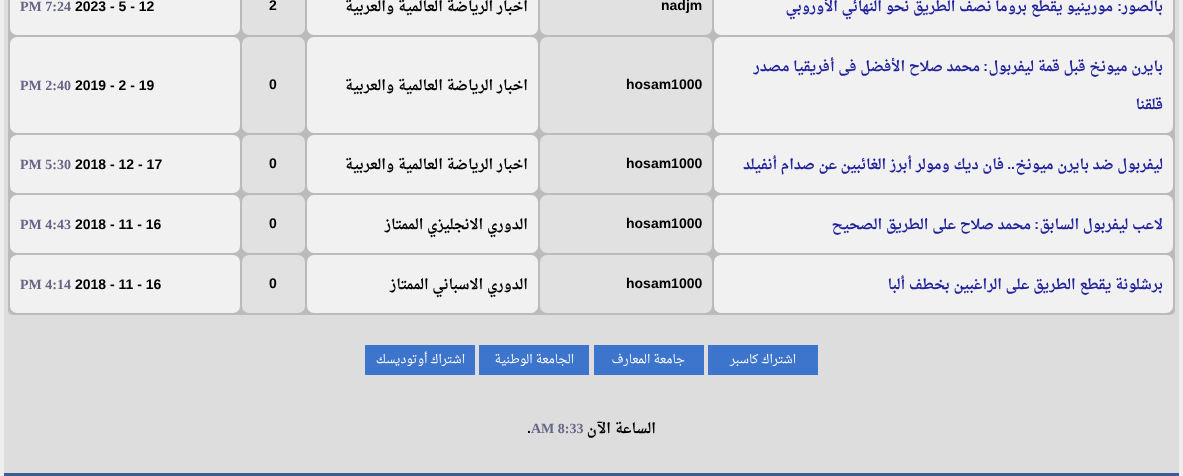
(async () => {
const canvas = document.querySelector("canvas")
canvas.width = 1183
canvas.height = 476
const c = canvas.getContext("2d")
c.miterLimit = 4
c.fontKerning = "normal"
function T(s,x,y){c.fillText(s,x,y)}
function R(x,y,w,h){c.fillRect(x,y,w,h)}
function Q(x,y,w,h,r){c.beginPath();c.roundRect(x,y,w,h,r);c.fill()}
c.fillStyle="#eee"
R(0,0,1183,476)
c.fillStyle="#ddd"
R(4,0,1175,473)
c.fillStyle="#bbb"
Q(8,-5,1167,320,5)
c.fillStyle="#f1f1f1"
Q(714,-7,459,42,7)
c.direction="rtl"
c.font="bold 14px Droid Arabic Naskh"
c.fillStyle="#22229c"
T("بالصور",1163,11)
c.font="bold 14px Liberation Sans"
T(":",1122,11)
c.font="bold 14px Droid Arabic Naskh"
T("مورينيو يقطع بروما نصف الطريق نحو النهائي الأوروبي",1113,11)
c.fillStyle="#e1e1e2"
Q(540,-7,172,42,7)
c.direction="ltr"
c.font="bold 14px Liberation Sans"
c.fillStyle="#000"
T("nadjm",661,10)
c.fillStyle="#f1f1f1"
Q(307,-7,231,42,7)
c.direction="rtl"
c.font="bold 14px Droid Arabic Naskh"
c.fillStyle="#000"
T("اخبار الرياضة العالمية والعربية",528,11)
c.fillStyle="#e1e1e2"
Q(242,-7,63,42,7)
c.direction="ltr"
c.font="bold 14px Liberation Sans"
c.fillStyle="#000"
T("2",269,10)
c.fillStyle="#f1f1f1"
Q(10,-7,230,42,7)
c.fillStyle="#000"
T("2023 - 5 - 12",75,11)
c.font="bold 14px Liberation Serif"
c.fillStyle="#666686"
T("PM 7:24",20,11)
c.fillStyle="#f1f1f1"
Q(714,37,459,96,7)
c.direction="rtl"
c.font="bold 14px Droid Arabic Naskh"
c.fillStyle="#22229c"
T("بايرن ميونخ قبل قمة ليفربول",1163,71)
c.font="bold 14px Liberation Sans"
T(":",988,71)
c.font="bold 14px Droid Arabic Naskh"
T("محمد صلاح الأفضل فى أفريقيا مصدر",980,71)
T("قلقنا",1163,109)
c.fillStyle="#e1e1e2"
Q(540,37,172,96,7)
c.direction="ltr"
c.font="bold 14px Liberation Sans"
c.fillStyle="#000"
T("hosam1000",626,89)
c.fillStyle="#f1f1f1"
Q(307,37,231,96,7)
c.direction="rtl"
c.font="bold 14px Droid Arabic Naskh"
c.fillStyle="#000"
T("اخبار الرياضة العالمية والعربية",528,90)
c.fillStyle="#e1e1e2"
Q(242,37,63,96,7)
c.direction="ltr"
c.font="bold 14px Liberation Sans"
c.fillStyle="#000"
T("0",269,89)
c.fillStyle="#f1f1f1"
Q(10,37,230,96,7)
c.fillStyle="#000"
T("2019 - 2 - 19",75,90)
c.font="bold 14px Liberation Serif"
c.fillStyle="#666686"
T("PM 2:40",20,90)
c.fillStyle="#f1f1f1"
Q(714,135,459,58,7)
c.direction="rtl"
c.font="bold 14px Droid Arabic Naskh"
c.fillStyle="#22229c"
T("ليفربول ضد بايرن ميونخ",1163,169)
c.font="bold 14px Liberation Sans"
T("..",1015,169)
c.font="bold 14px Droid Arabic Naskh"
T("فان ديك ومولر أبرز الغائبين عن صدام أنفيلد",1004,169)
c.fillStyle="#e1e1e2"
Q(540,135,172,58,7)
c.direction="ltr"
c.font="bold 14px Liberation Sans"
c.fillStyle="#000"
T("hosam1000",626,168)
c.fillStyle="#f1f1f1"
Q(307,135,231,58,7)
c.direction="rtl"
c.font="bold 14px Droid Arabic Naskh"
c.fillStyle="#000"
T("اخبار الرياضة العالمية والعربية",528,169)
c.fillStyle="#e1e1e2"
Q(242,135,63,58,7)
c.direction="ltr"
c.font="bold 14px Liberation Sans"
c.fillStyle="#000"
T("0",269,168)
c.fillStyle="#f1f1f1"
Q(10,135,230,58,7)
c.fillStyle="#000"
T("2018 - 12 - 17",75,169)
c.font="bold 14px Liberation Serif"
c.fillStyle="#666686"
T("PM 5:30",20,169)
c.fillStyle="#f1f1f1"
Q(714,195,459,58,7)
c.direction="rtl"
c.font="bold 14px Droid Arabic Naskh"
c.fillStyle="#22229c"
T("لاعب ليفربول السابق",1163,229)
c.font="bold 14px Liberation Sans"
T(":",1039,229)
c.font="bold 14px Droid Arabic Naskh"
T("محمد صلاح على الطريق الصحيح",1031,229)
c.fillStyle="#e1e1e2"
Q(540,195,172,58,7)
c.direction="ltr"
c.font="bold 14px Liberation Sans"
c.fillStyle="#000"
T("hosam1000",626,228)
c.fillStyle="#f1f1f1"
Q(307,195,231,58,7)
c.direction="rtl"
c.font="bold 14px Droid Arabic Naskh"
c.fillStyle="#000"
T("الدوري الانجليزي الممتاز",528,229)
c.fillStyle="#e1e1e2"
Q(242,195,63,58,7)
c.direction="ltr"
c.font="bold 14px Liberation Sans"
c.fillStyle="#000"
T("0",269,228)
c.fillStyle="#f1f1f1"
Q(10,195,230,58,7)
c.fillStyle="#000"
T("2018 - 11 - 16",75,229)
c.font="bold 14px Liberation Serif"
c.fillStyle="#666686"
T("PM 4:43",20,229)
c.fillStyle="#f1f1f1"
Q(714,255,459,58,7)
c.direction="rtl"
c.font="bold 14px Droid Arabic Naskh"
c.fillStyle="#22229c"
T("برشلونة يقطع الطريق على الراغبين بخطف ألبا",1163,289)
c.fillStyle="#e1e1e2"
Q(540,255,172,58,7)
c.direction="ltr"
c.font="bold 14px Liberation Sans"
c.fillStyle="#000"
T("hosam1000",626,288)
c.fillStyle="#f1f1f1"
Q(307,255,231,58,7)
c.direction="rtl"
c.font="bold 14px Droid Arabic Naskh"
c.fillStyle="#000"
T("الدوري الاسباني الممتاز",528,289)
c.fillStyle="#e1e1e2"
Q(242,255,63,58,7)
c.direction="ltr"
c.font="bold 14px Liberation Sans"
c.fillStyle="#000"
T("0",269,288)
c.fillStyle="#f1f1f1"
Q(10,255,230,58,7)
c.fillStyle="#000"
T("2018 - 11 - 16",75,289)
c.font="bold 14px Liberation Serif"
c.fillStyle="#666686"
T("PM 4:14",20,289)
c.fillStyle="#3d74cc"
R(708,345,110,30)
c.direction="rtl"
c.font="12px Droid Arabic Naskh"
c.fillStyle="#fff"
T("اشتراك كاسبر",796,363)
c.fillStyle="#3d74cc"
R(594,345,110,30)
c.fillStyle="#fff"
T("جامعة المعارف",685,363)
c.fillStyle="#3d74cc"
R(479,345,110,30)
c.fillStyle="#fff"
T("الجامعة الوطنية",574,363)
c.fillStyle="#3d74cc"
R(365,345,110,30)
c.fillStyle="#fff"
T("اشتراك أوتوديسك",465,363)
c.font="bold 14px Droid Arabic Naskh"
c.fillStyle="#000"
T("الساعة الآن",656,433)
c.direction="ltr"
c.font="bold 14px Liberation Serif"
c.fillStyle="#666686"
T("AM 8:33",531,433)
c.font="bold 14px Liberation Sans"
c.fillStyle="#000"
T(".",527,433)
c.fillStyle="#3e5c92"
R(4,473,1175,3)
})()
